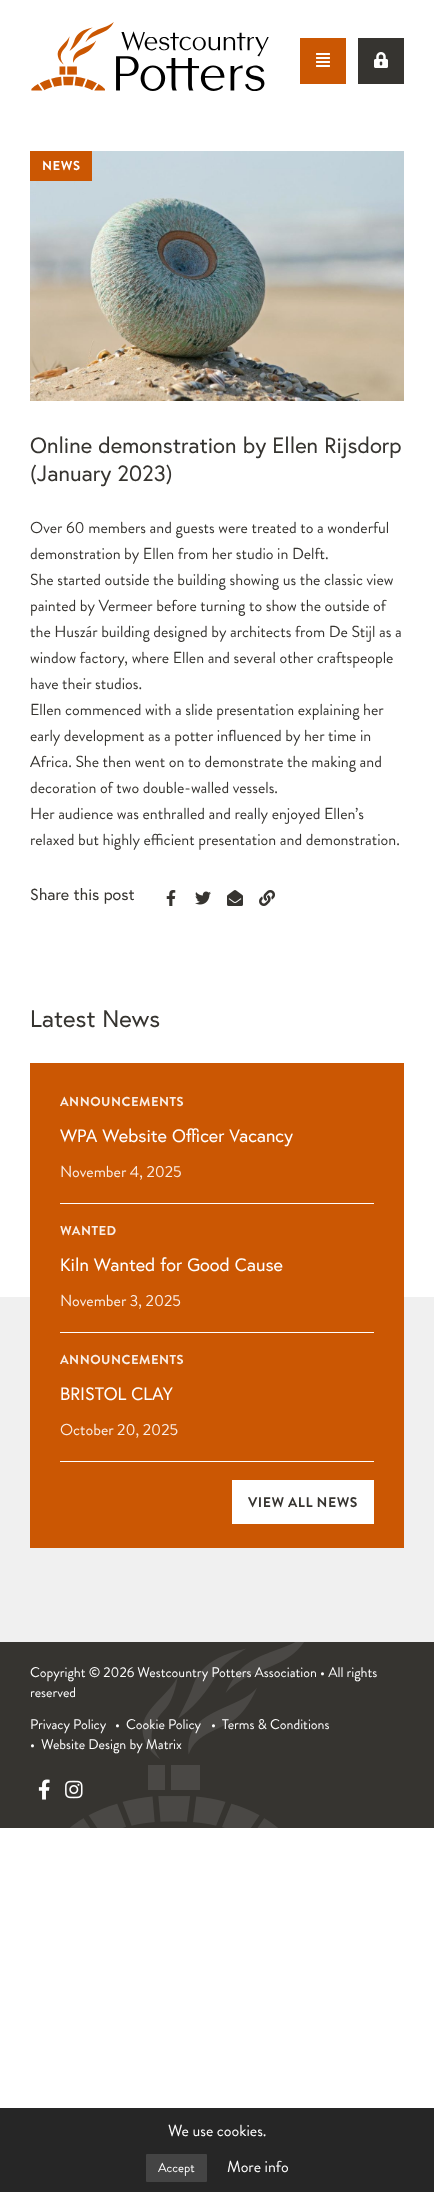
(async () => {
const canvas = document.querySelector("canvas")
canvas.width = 434
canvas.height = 2192
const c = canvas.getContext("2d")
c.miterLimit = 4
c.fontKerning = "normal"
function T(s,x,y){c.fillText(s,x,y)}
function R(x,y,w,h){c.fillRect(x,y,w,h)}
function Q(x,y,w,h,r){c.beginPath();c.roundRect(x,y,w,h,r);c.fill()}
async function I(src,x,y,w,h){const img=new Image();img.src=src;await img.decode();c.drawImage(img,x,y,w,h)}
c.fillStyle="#fff"
R(0,0,434,2192)
await I("1.png",31,22,238,69)
c.fillStyle="#cb5703"
R(300,38,46,46)
await I("2.png",316,53,14,14)
c.fillStyle="#363430"
R(358,38,46,46)
await I("3.png",374,52,14,16)
await I("4.png",30,151,374,250)
c.fillStyle="#cb5703"
R(30,151,62,30)
c.letterSpacing="0.5px"
c.font="bold 13px Brandon Grotesque"
c.fillStyle="#fff"
T("NEWS",42,170)
c.letterSpacing="0px"
c.font="22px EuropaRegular"
c.fillStyle="#363430"
T("Online demonstration by Ellen Rijsdorp",30,453)
T("(January 2023)",30,481)
c.font="16px Brandon Grotesque"
T("Over 60 members and guests were treated to a wonderful",30,533)
T("demonstration by Ellen from her studio in Delft.",30,559)
T("She started outside the building showing us the classic view",30,585)
T("painted by Vermeer before turning to show the outside of",30,611)
T("the Huszár building designed by architects from De Stijl as a",30,637)
T("window factory, where Ellen and several other craftspeople",30,663)
T("have their studios.",30,689)
T("Ellen commenced with a slide presentation explaining her",30,715)
T("early development as a potter influenced by her time in",30,741)
T("Africa. She then went on to demonstrate the making and",30,767)
T("decoration of two double-walled vessels.",30,793)
T("Her audience was enthralled and really enjoyed Ellen’s",30,819)
T("relaxed but highly efficient presentation and demonstration.",30,845)
c.font="16px EuropaRegular"
T("Share this post",30,900)
await I("5.png",166,890,10,16)
await I("6.png",195,891,16,14)
await I("7.png",227,890,16,16)
await I("8.png",259,890,16,16)
c.font="24px EuropaRegular"
T("Latest News",30,1027)
c.fillStyle="#f0f0f0"
R(0,1297,434,345)
c.fillStyle="#cb5703"
R(30,1063,374,485)
c.fillStyle="#fff"
R(60,1203,314,1)
c.letterSpacing="0.5px"
c.font="bold 13px Brandon Grotesque"
c.fillStyle="#faeee6"
T("ANNOUNCEMENTS",60,1106)
c.letterSpacing="0px"
c.font="18px EuropaRegular"
c.fillStyle="#fff"
T("WPA Website Officer Vacancy",60,1142)
c.font="16px Brandon Grotesque"
c.fillStyle="#faeee6"
T("November 4, 2025",60,1177)
c.fillStyle="#fff"
R(60,1332,314,1)
c.letterSpacing="0.5px"
c.font="bold 13px Brandon Grotesque"
c.fillStyle="#faeee6"
T("WANTED",60,1235)
c.letterSpacing="0px"
c.font="18px EuropaRegular"
c.fillStyle="#fff"
T("Kiln Wanted for Good Cause",60,1271)
c.font="16px Brandon Grotesque"
c.fillStyle="#faeee6"
T("November 3, 2025",60,1306)
c.fillStyle="#fff"
R(60,1461,314,1)
c.letterSpacing="0.5px"
c.font="bold 13px Brandon Grotesque"
c.fillStyle="#faeee6"
T("ANNOUNCEMENTS",60,1364)
c.letterSpacing="0px"
c.font="18px EuropaRegular"
c.fillStyle="#fff"
T("BRISTOL CLAY",60,1400)
c.font="16px Brandon Grotesque"
c.fillStyle="#faeee6"
T("October 20, 2025",60,1435)
c.fillStyle="#fff"
R(232,1480,142,44)
c.letterSpacing="0.5px"
c.font="bold 14px Brandon Grotesque"
c.fillStyle="#363430"
T("VIEW ALL NEWS",248,1507)
R(0,1642,434,186)
await I("9.png",70,1642,234,186)
c.letterSpacing="0px"
c.font="14px Brandon Grotesque"
c.fillStyle="#fff"
T("Copyright © 2026 Westcountry Potters Association • All rights",30,1677)
T("reserved",30,1697)
T("Privacy Policy",30,1729)
T("•",115,1729)
T("Cookie Policy",126,1729)
T("•",211,1729)
T("Terms & Conditions",222,1729)
T("•",30,1749)
T("Website Design by Matrix",41,1749)
await I("10.png",38,1779,12,21)
await I("11.png",65,1780,18,19)
c.fillStyle="#262626"
R(0,2108,434,84)
c.font="16px Brandon Grotesque"
c.fillStyle="#fff"
T("We use cookies.",168,2136)
c.fillStyle="#444"
Q(146,2154,61,28,1)
c.font="13px Brandon Grotesque"
c.fillStyle="#fff"
T("Accept",158,2172)
c.font="16px Brandon Grotesque"
T("More info",227,2172)
})()
